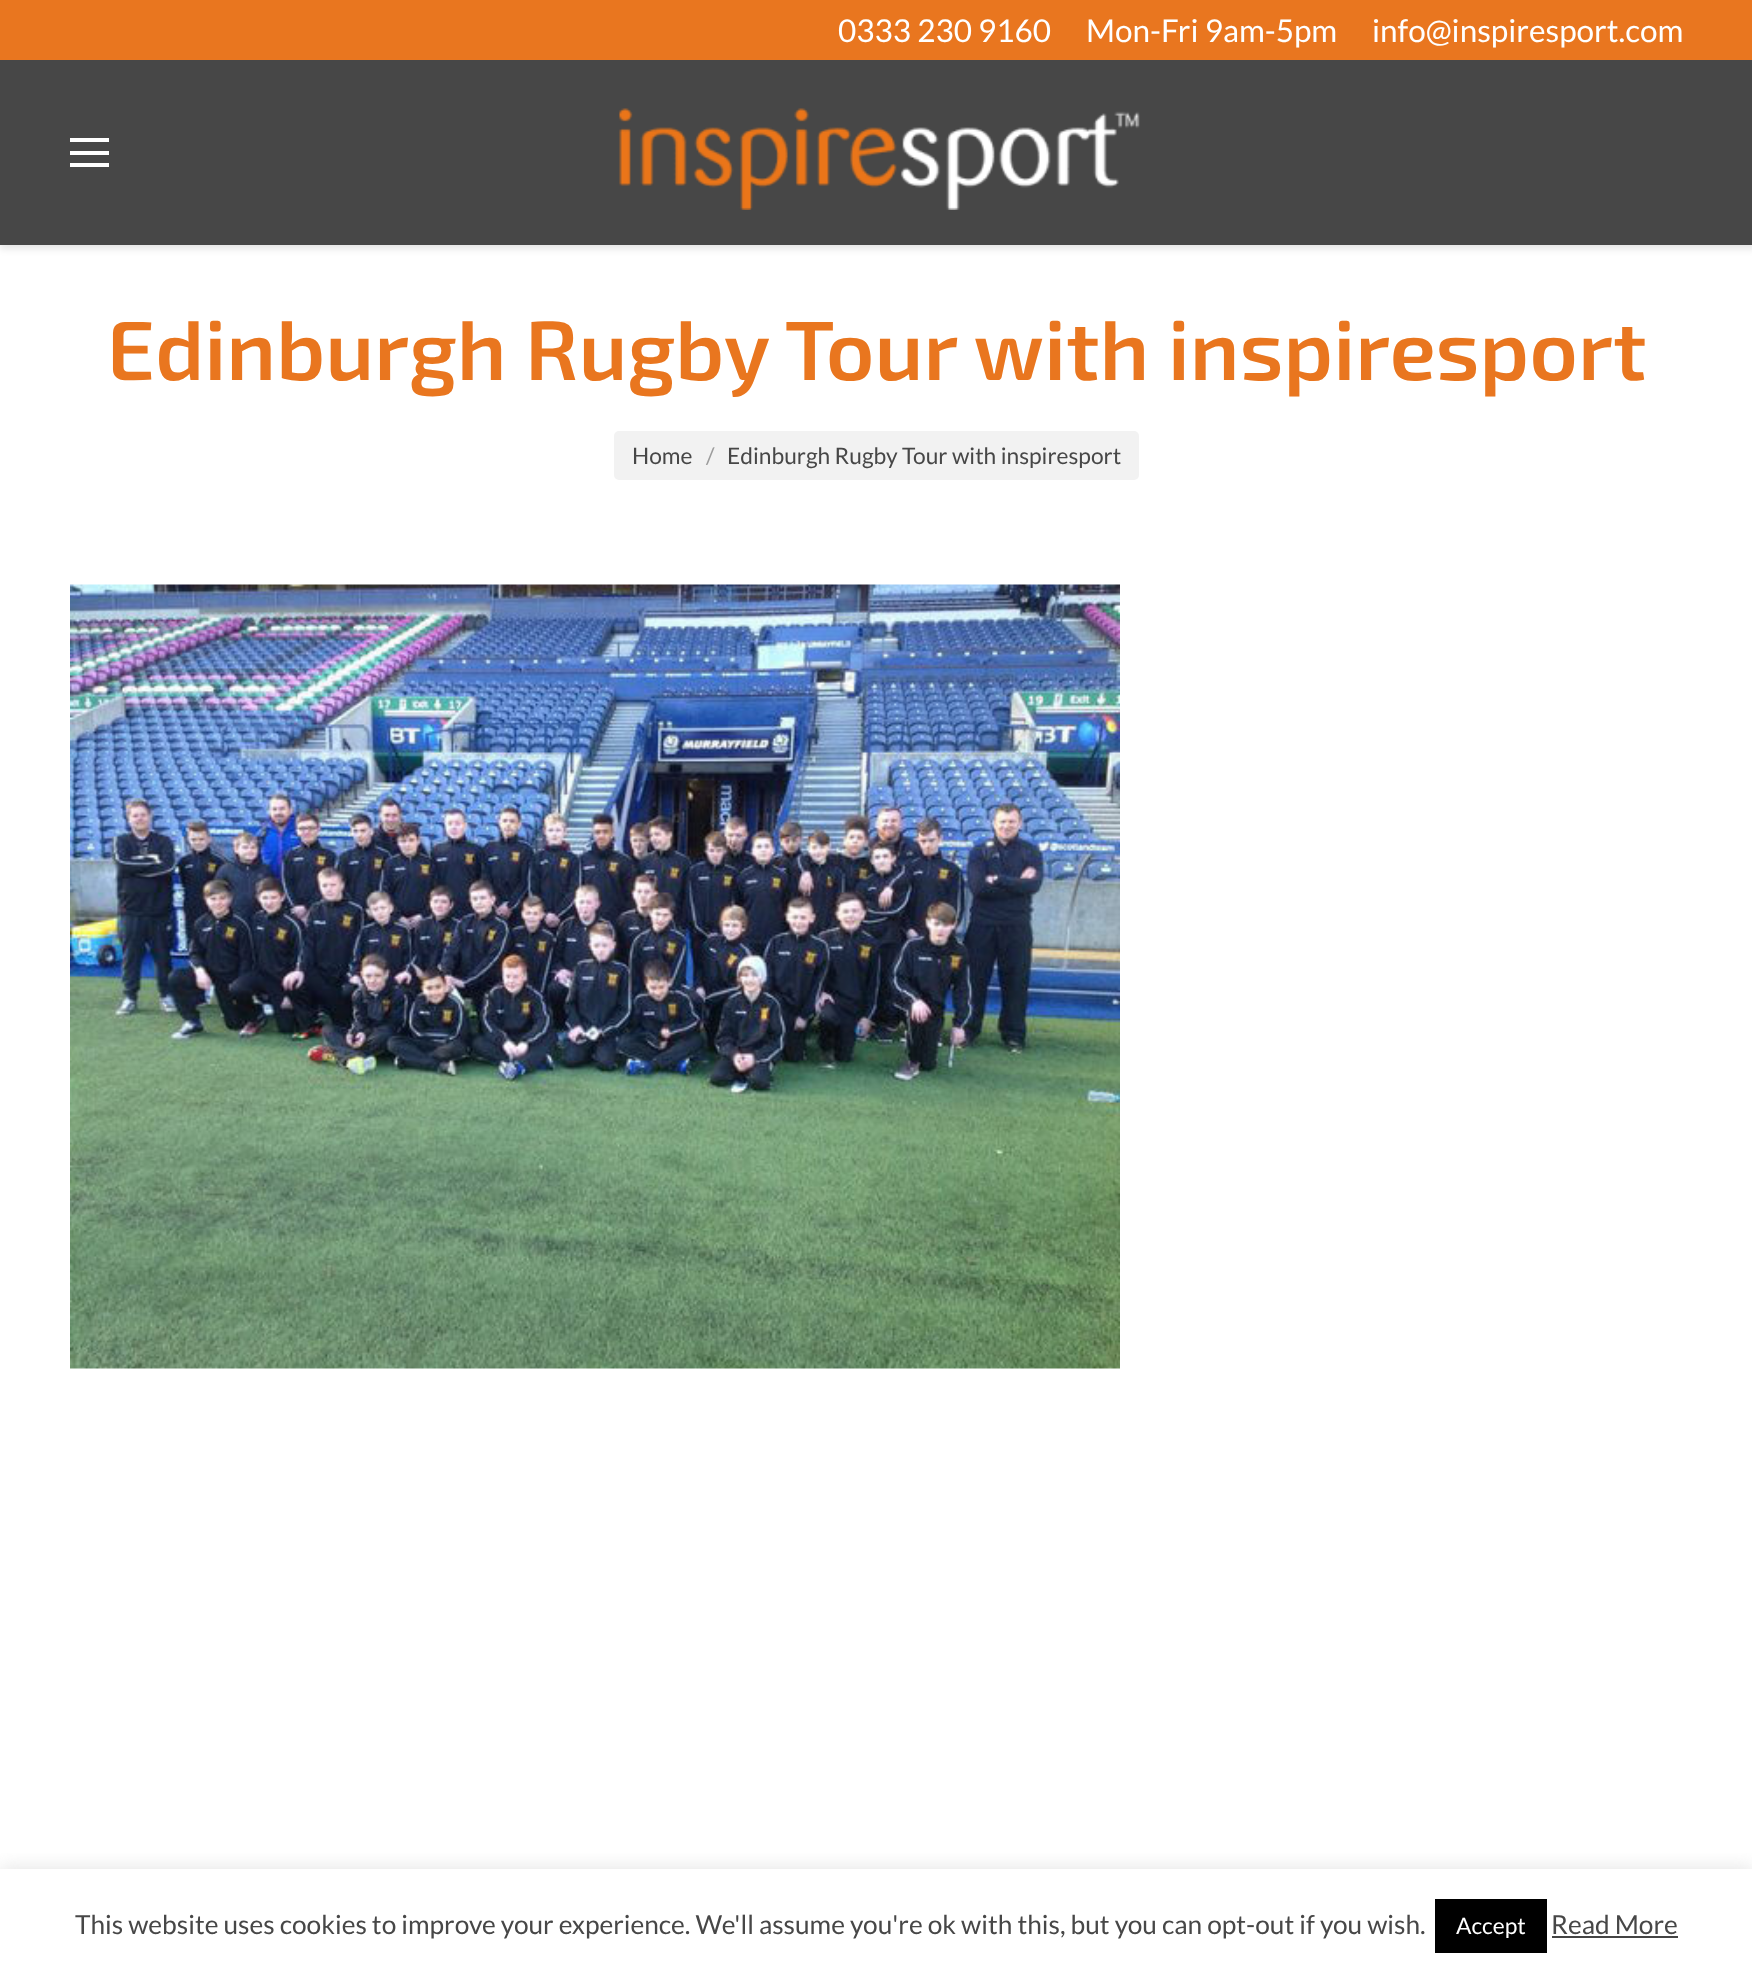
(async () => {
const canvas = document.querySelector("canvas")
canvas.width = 1752
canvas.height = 1973
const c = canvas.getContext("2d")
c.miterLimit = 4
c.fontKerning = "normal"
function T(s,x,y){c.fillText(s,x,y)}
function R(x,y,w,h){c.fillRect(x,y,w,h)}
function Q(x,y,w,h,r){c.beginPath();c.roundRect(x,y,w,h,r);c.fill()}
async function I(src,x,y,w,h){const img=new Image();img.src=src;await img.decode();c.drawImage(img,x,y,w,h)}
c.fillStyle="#fff"
R(0,0,1752,1973)
c.fillStyle="#0000001a"
c.filter="blur(3.5px)"
c.beginPath()
c.rect(0,0,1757,249)
c.fill()
c.filter="none"
c.fillStyle="#474747"
R(0,60,1752,185)
c.fillStyle="#e9761f"
R(0,0,1752,60)
c.font="31.5px Lato"
c.fillStyle="#fff"
T("0333 230 9160",838,42)
T("Mon-Fri 9am-5pm",1086,42)
T("info@inspiresport.com",1372,42)
R(70,151,39,4)
R(70,138,39,4)
R(70,163,39,4)
await I("1.png",619,108,521,102)
c.font="600 84px 'Exo 2'"
c.fillStyle="#e9761f"
T("Edinburgh Rugby Tour with inspiresport",107,380)
c.fillStyle="#f2f2f2"
Q(614,431,525,49,5)
c.font="22.75px Lato"
c.fillStyle="#474747"
T("Home",632,464)
c.fillStyle="#9d9d9d"
T("/",706,464)
c.fillStyle="#474747"
T("Edinburgh Rugby Tour with inspiresport",727,464)
await I("2.png",70,584,1050,785)
c.save()
c.beginPath()
c.rect(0,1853,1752,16)
c.clip()
c.fillStyle="#acabab4d"
c.filter="blur(9px)"
c.beginPath()
c.rect(0,1867,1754,105)
c.fill()
c.filter="none"
c.restore()
c.font="26.25px Lato"
T("This website uses cookies to improve your experience. We'll assume you're ok with this, but you can opt-out if you wish.",75,1934)
c.fillStyle="#000"
R(1435,1899,112,54)
c.font="22.75px Lato"
c.fillStyle="#fff"
T("Accept",1456,1934)
c.font="26.25px Lato"
c.fillStyle="#474747"
T("Read More",1551,1934)
c.fillStyle="#444"
R(1552,1936,126,2)
})()
